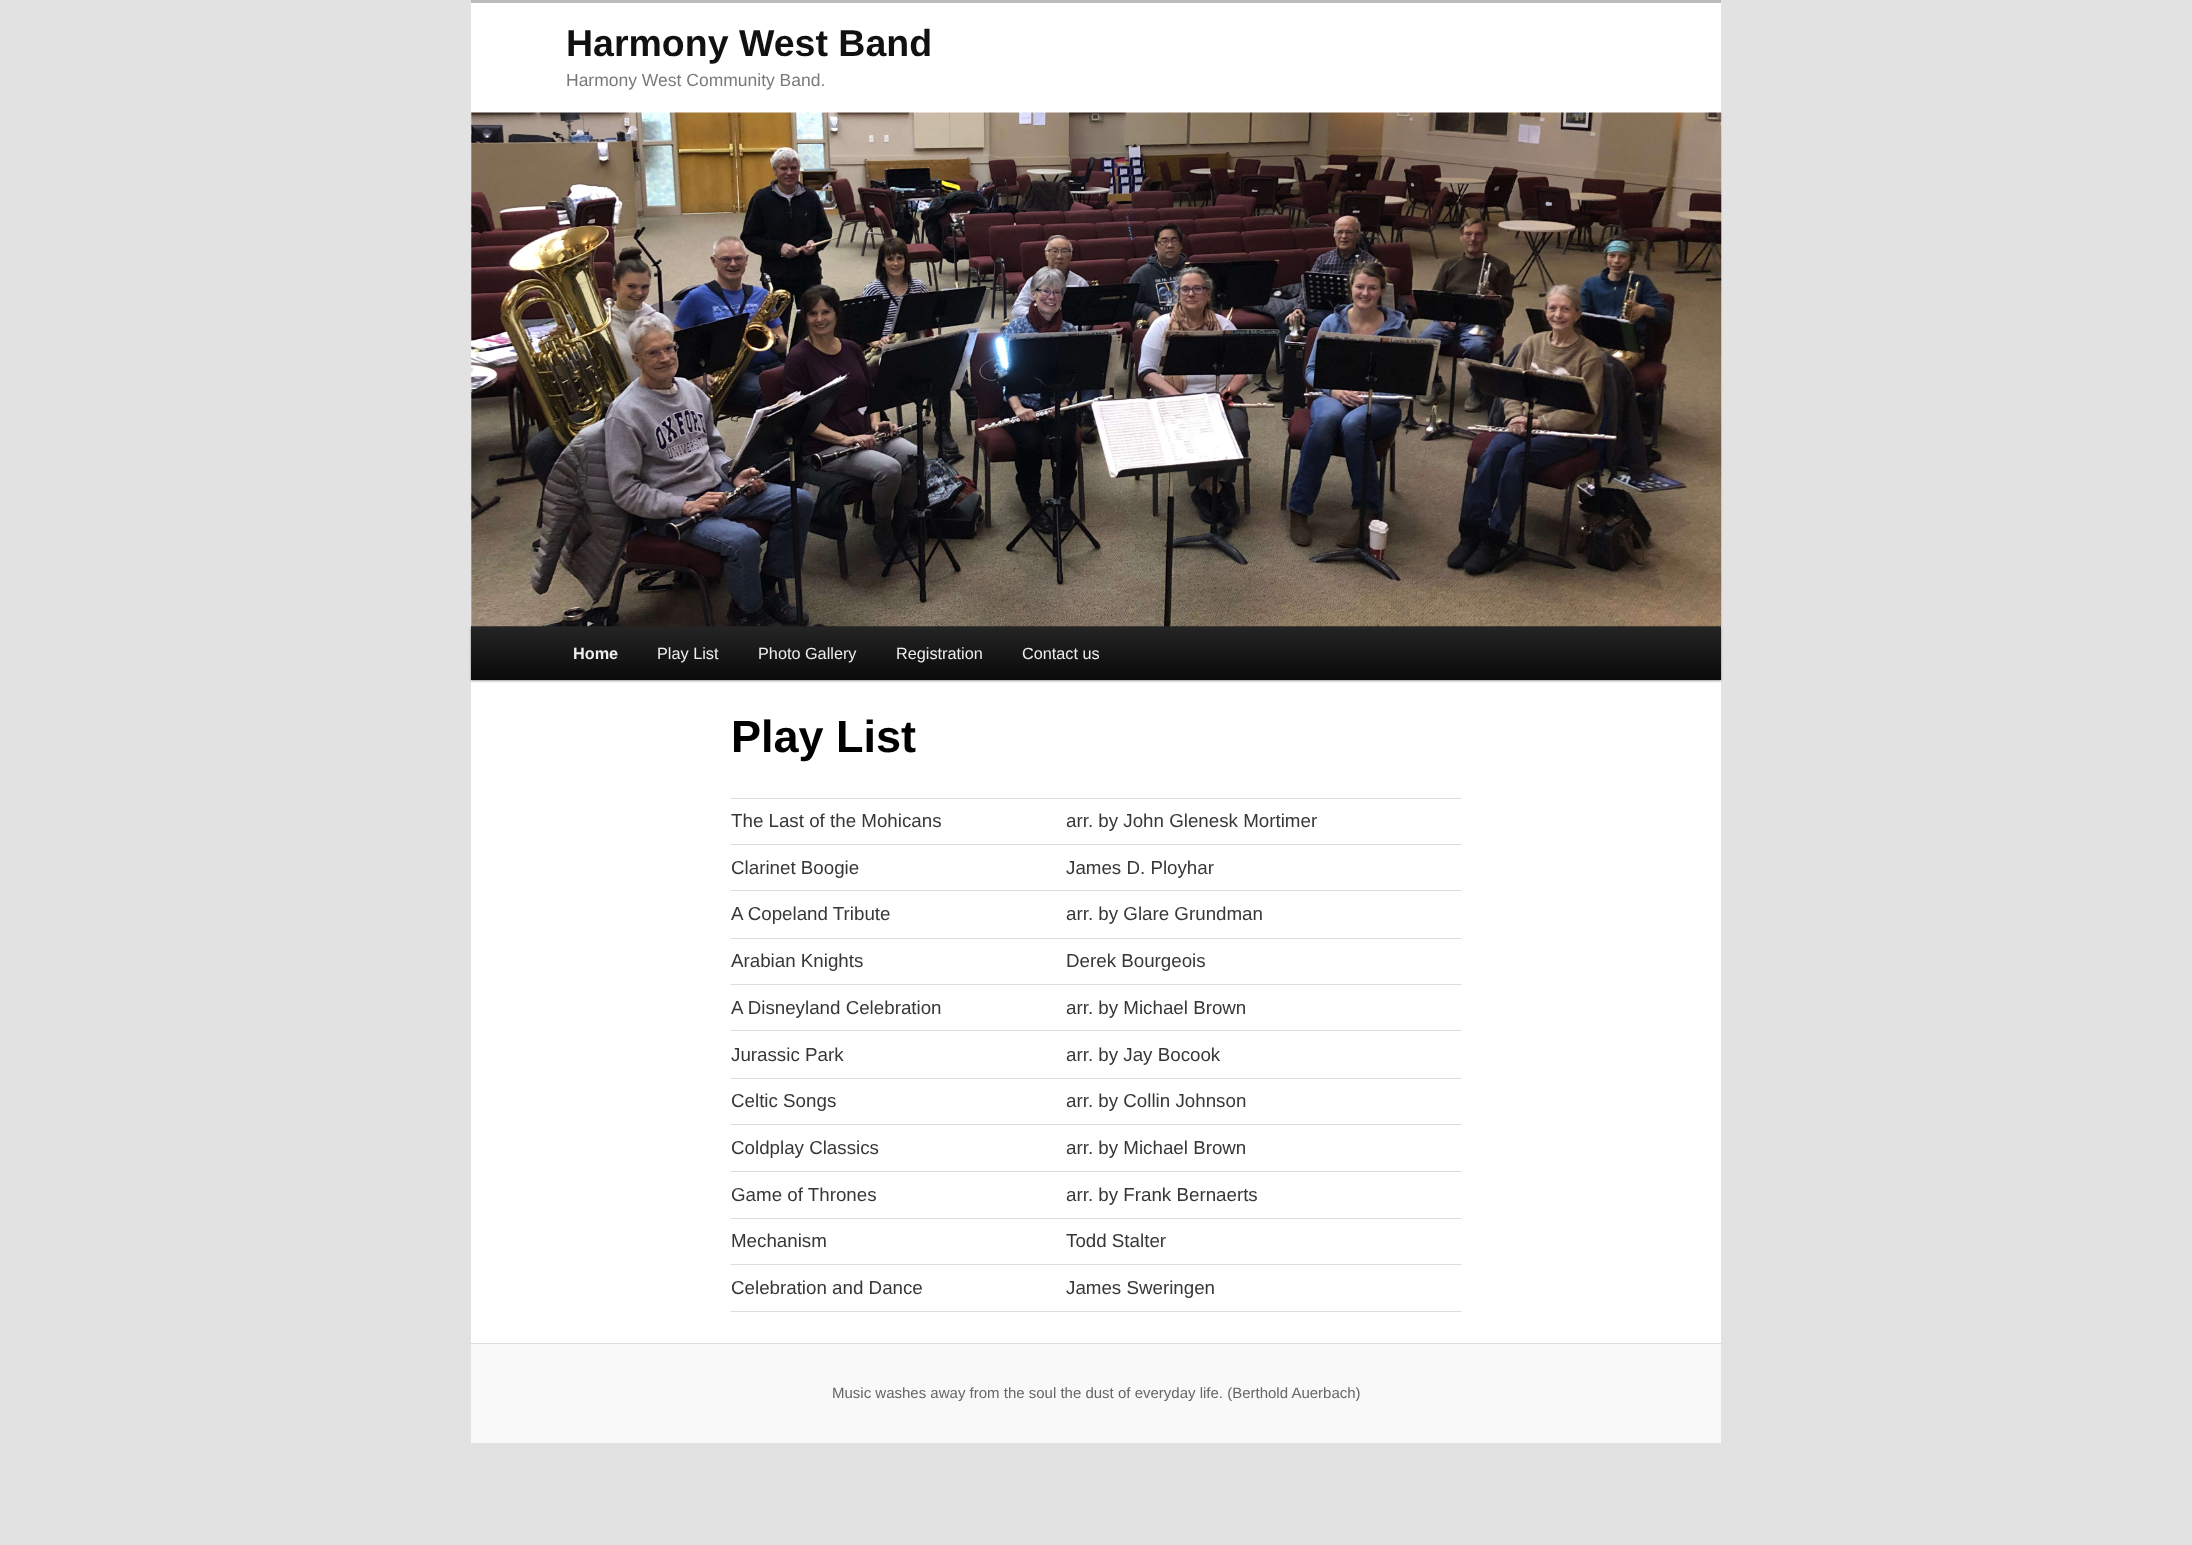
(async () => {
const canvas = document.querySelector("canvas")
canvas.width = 2192
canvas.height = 1545
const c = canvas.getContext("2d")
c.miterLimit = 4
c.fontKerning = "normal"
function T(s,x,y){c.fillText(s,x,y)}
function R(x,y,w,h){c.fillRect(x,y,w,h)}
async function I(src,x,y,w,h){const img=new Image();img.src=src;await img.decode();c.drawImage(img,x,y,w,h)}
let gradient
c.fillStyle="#e2e2e2"
R(0,0,2192,1545)
c.fillStyle="#fff"
R(471,3,1250,1340)
c.fillStyle="#bbb"
R(471,0,1250,3)
c.font="bold 37.5px Liberation Sans"
c.fillStyle="#111"
T("Harmony West Band",566,56)
c.font="17.5px Liberation Sans"
c.fillStyle="#7a7a7a"
T("Harmony West Community Band.",566,86)
c.fillStyle="#00000066"
c.filter="blur(1px)"
c.beginPath()
c.rect(471,628,1250,53)
c.fill()
c.filter="none"
gradient = c.createLinearGradient(1096,626,1096,680)
gradient.addColorStop(0,"#252525")
gradient.addColorStop(1,"#0a0a0a")
c.fillStyle = gradient
R(471,626,1250,54)
await I("1.png",471,112,1251,515)
c.font="bold 16.25px Liberation Sans"
c.fillStyle="#eee"
T("Home",573,659)
c.font="16.25px Liberation Sans"
T("Play List",657,659)
T("Photo Gallery",758,659)
T("Registration",896,659)
T("Contact us",1022,659)
c.font="bold 45px Liberation Sans"
c.fillStyle="#000"
T("Play List",731,752)
c.fillStyle="#ddd"
R(731,1311,730,1)
R(731,798,730,1)
c.font="18.75px Liberation Sans"
c.fillStyle="#373737"
T("The Last of the Mohicans",731,827)
T("arr. by John Glenesk Mortimer",1066,827)
c.fillStyle="#ddd"
R(731,844,730,1)
c.fillStyle="#373737"
T("Clarinet Boogie",731,874)
T("James D. Ployhar",1066,874)
c.fillStyle="#ddd"
R(731,890,730,1)
c.fillStyle="#373737"
T("A Copeland Tribute",731,920)
T("arr. by Glare Grundman",1066,920)
c.fillStyle="#ddd"
R(731,938,730,1)
c.fillStyle="#373737"
T("Arabian Knights",731,967)
T("Derek Bourgeois",1066,967)
c.fillStyle="#ddd"
R(731,984,730,1)
c.fillStyle="#373737"
T("A Disneyland Celebration",731,1014)
T("arr. by Michael Brown",1066,1014)
c.fillStyle="#ddd"
R(731,1030,730,1)
c.fillStyle="#373737"
T("Jurassic Park",731,1061)
T("arr. by Jay Bocook",1066,1061)
c.fillStyle="#ddd"
R(731,1078,730,1)
c.fillStyle="#373737"
T("Celtic Songs",731,1107)
T("arr. by Collin Johnson",1066,1107)
c.fillStyle="#ddd"
R(731,1124,730,1)
c.fillStyle="#373737"
T("Coldplay Classics",731,1154)
T("arr. by Michael Brown",1066,1154)
c.fillStyle="#ddd"
R(731,1171,730,1)
c.fillStyle="#373737"
T("Game of Thrones",731,1201)
T("arr. by Frank Bernaerts",1066,1201)
c.fillStyle="#ddd"
R(731,1218,730,1)
c.fillStyle="#373737"
T("Mechanism",731,1247)
T("Todd Stalter",1066,1247)
c.fillStyle="#ddd"
R(731,1264,730,1)
c.fillStyle="#373737"
T("Celebration and Dance",731,1294)
T("James Sweringen",1066,1294)
c.fillStyle="#f9f9f9"
R(471,1344,1250,99)
c.fillStyle="#ddd"
R(471,1343,1250,1)
c.font="15px Liberation Sans"
c.fillStyle="#666"
T("Music washes away from the soul the dust of everyday life. (Berthold Auerbach)",832,1398)
})()
